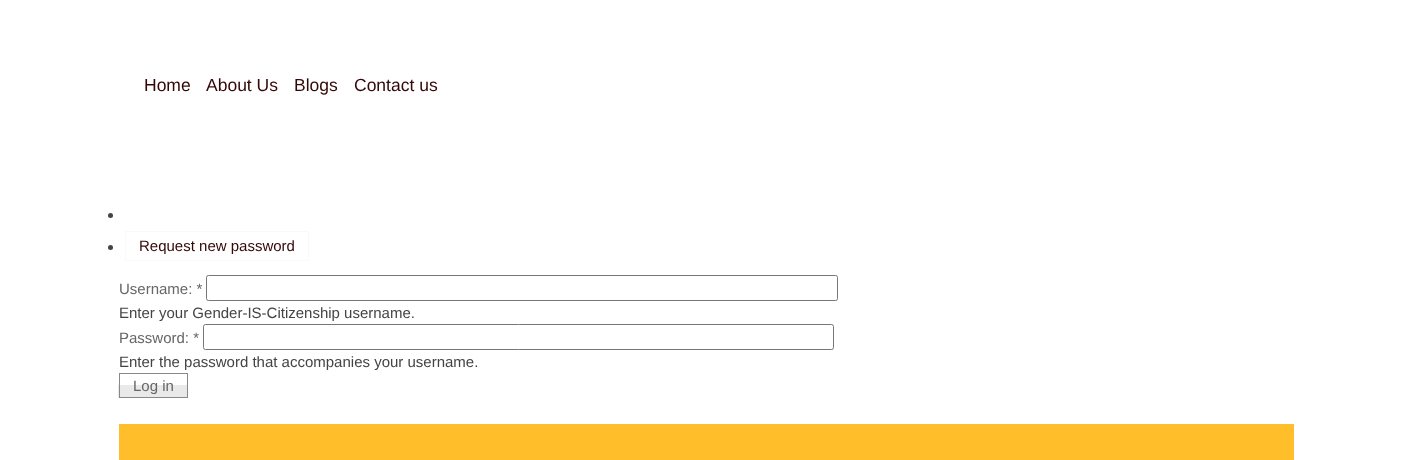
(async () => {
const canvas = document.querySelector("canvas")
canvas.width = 1412
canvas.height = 460
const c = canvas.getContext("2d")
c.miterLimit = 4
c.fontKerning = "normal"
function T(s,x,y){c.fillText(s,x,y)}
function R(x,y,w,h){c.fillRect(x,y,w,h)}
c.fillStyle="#fff"
R(0,0,1412,460)
c.font="17.5px Liberation Sans"
c.fillStyle="#340707"
T("Home",144,91)
T("About Us",206,91)
T("Blogs",294,91)
T("Contact us",354,91)
c.fillStyle="#444"
c.beginPath()
c.arc(110.5,215.5,2.5,0,7)
c.fill()
c.beginPath()
c.arc(110.5,247.5,2.5,0,7)
c.fill()
c.strokeStyle="#f9f9f9"
c.strokeRect(125.5,231.5,183,29)
c.font="15px Liberation Sans"
c.fillStyle="#340707"
T("Request new password",139,251)
c.fillStyle="#666"
T("Username: *",119,294)
c.beginPath()
c.roundRect(206.5,275.5,631,25,2)
c.strokeStyle="#767676"
c.stroke()
c.fillStyle="#444"
T("Enter your Gender-IS-Citizenship username.",119,318)
c.fillStyle="#666"
T("Password: *",119,343)
c.beginPath()
c.roundRect(203.5,324.5,630,25,2)
c.stroke()
c.fillStyle="#444"
T("Enter the password that accompanies your username.",119,367)
c.fillStyle="#e9e9e9"
R(118,385,69,13)
c.strokeStyle="#888"
c.strokeRect(119.5,373.5,68,24)
c.fillStyle="#666"
T("Log in",133,391)
c.fillStyle="#ffbe2a"
R(119,424,1175,36)
})()
